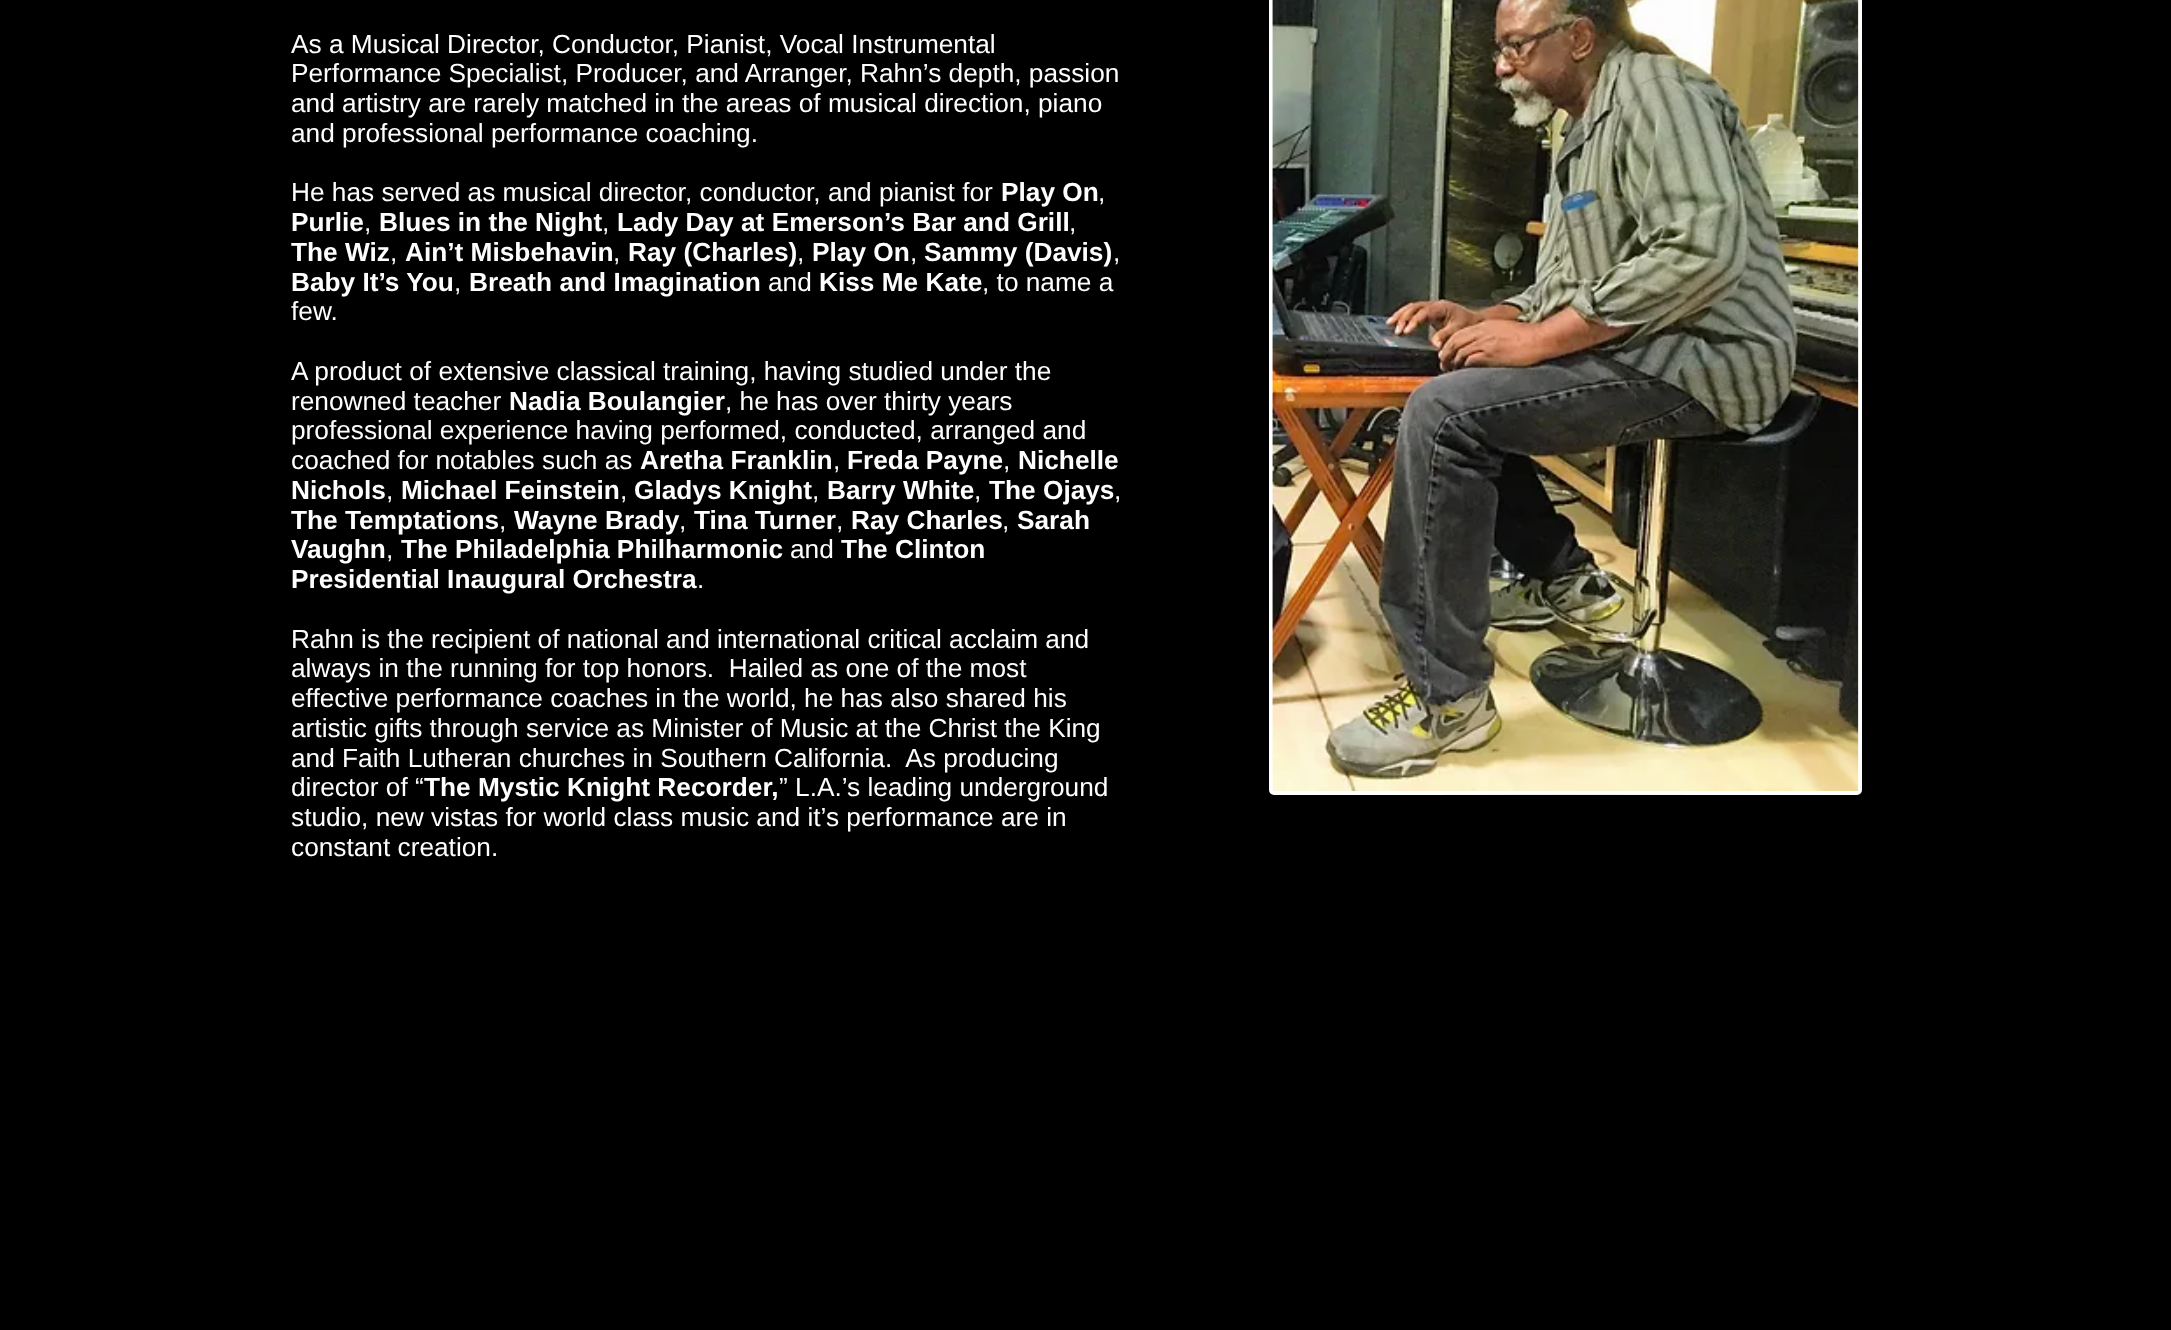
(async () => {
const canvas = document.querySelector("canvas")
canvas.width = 2171
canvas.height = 1330
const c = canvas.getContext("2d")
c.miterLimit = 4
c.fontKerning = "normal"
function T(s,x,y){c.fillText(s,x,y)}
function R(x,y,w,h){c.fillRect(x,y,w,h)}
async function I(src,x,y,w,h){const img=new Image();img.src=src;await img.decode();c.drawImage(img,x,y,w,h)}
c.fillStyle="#000"
R(0,0,2171,1330)
c.font="26.25px Liberation Sans"
c.fillStyle="#fff"
T("As a Musical Director, Conductor, Pianist, Vocal Instrumental",291,53)
T("Performance Specialist, Producer, and Arranger, Rahn’s depth, passion",291,82)
T("and artistry are rarely matched in the areas of musical direction, piano",291,112)
T("and professional performance coaching.",291,142)
T("He has served as musical director, conductor, and pianist for",291,201)
c.font="bold 26.25px Liberation Sans"
T("Play On",1001,201)
c.font="26.25px Liberation Sans"
T(",",1098,201)
c.font="bold 26.25px Liberation Sans"
T("Purlie",291,231)
c.font="26.25px Liberation Sans"
T(",",364,231)
c.font="bold 26.25px Liberation Sans"
T("Blues in the Night",379,231)
c.font="26.25px Liberation Sans"
T(",",602,231)
c.font="bold 26.25px Liberation Sans"
T("Lady Day at Emerson’s Bar and Grill",617,231)
c.font="26.25px Liberation Sans"
T(",",1069,231)
c.font="bold 26.25px Liberation Sans"
T("The Wiz",291,261)
c.font="26.25px Liberation Sans"
T(",",390,261)
c.font="bold 26.25px Liberation Sans"
T("Ain’t Misbehavin",405,261)
c.font="26.25px Liberation Sans"
T(",",613,261)
c.font="bold 26.25px Liberation Sans"
T("Ray (Charles)",628,261)
c.font="26.25px Liberation Sans"
T(",",797,261)
c.font="bold 26.25px Liberation Sans"
T("Play On",812,261)
c.font="26.25px Liberation Sans"
T(",",910,261)
c.font="bold 26.25px Liberation Sans"
T("Sammy (Davis)",924,261)
c.font="26.25px Liberation Sans"
T(",",1113,261)
c.font="bold 26.25px Liberation Sans"
T("Baby It’s You",291,291)
c.font="26.25px Liberation Sans"
T(",",454,291)
c.font="bold 26.25px Liberation Sans"
T("Breath and Imagination",469,291)
c.font="26.25px Liberation Sans"
T("and",768,291)
c.font="bold 26.25px Liberation Sans"
T("Kiss Me Kate",819,291)
c.font="26.25px Liberation Sans"
T(", to name a",982,291)
T("few.",291,320)
T("A product of extensive classical training, having studied under the",291,380)
T("renowned teacher",291,410)
c.font="bold 26.25px Liberation Sans"
T("Nadia Boulangier",509,410)
c.font="26.25px Liberation Sans"
T(", he has over thirty years",725,410)
T("professional experience having performed, conducted, arranged and",291,439)
T("coached for notables such as",291,469)
c.font="bold 26.25px Liberation Sans"
T("Aretha Franklin",640,469)
c.font="26.25px Liberation Sans"
T(",",833,469)
c.font="bold 26.25px Liberation Sans"
T("Freda Payne",847,469)
c.font="26.25px Liberation Sans"
T(",",1003,469)
c.font="bold 26.25px Liberation Sans"
T("Nichelle",1018,469)
T("Nichols",291,499)
c.font="26.25px Liberation Sans"
T(",",386,499)
c.font="bold 26.25px Liberation Sans"
T("Michael Feinstein",401,499)
c.font="26.25px Liberation Sans"
T(",",620,499)
c.font="bold 26.25px Liberation Sans"
T("Gladys Knight",634,499)
c.font="26.25px Liberation Sans"
T(",",812,499)
c.font="bold 26.25px Liberation Sans"
T("Barry White",827,499)
c.font="26.25px Liberation Sans"
T(",",974,499)
c.font="bold 26.25px Liberation Sans"
T("The Ojays",989,499)
c.font="26.25px Liberation Sans"
T(",",1114,499)
c.font="bold 26.25px Liberation Sans"
T("The Temptations",291,529)
c.font="26.25px Liberation Sans"
T(",",499,529)
c.font="bold 26.25px Liberation Sans"
T("Wayne Brady",514,529)
c.font="26.25px Liberation Sans"
T(",",679,529)
c.font="bold 26.25px Liberation Sans"
T("Tina Turner",694,529)
c.font="26.25px Liberation Sans"
T(",",836,529)
c.font="bold 26.25px Liberation Sans"
T("Ray Charles",851,529)
c.font="26.25px Liberation Sans"
T(",",1002,529)
c.font="bold 26.25px Liberation Sans"
T("Sarah",1017,529)
T("Vaughn",291,558)
c.font="26.25px Liberation Sans"
T(",",386,558)
c.font="bold 26.25px Liberation Sans"
T("The Philadelphia Philharmonic",401,558)
c.font="26.25px Liberation Sans"
T("and",790,558)
c.font="bold 26.25px Liberation Sans"
T("The Clinton",841,558)
T("Presidential Inaugural Orchestra",291,588)
c.font="26.25px Liberation Sans"
T(".",697,588)
T("Rahn is the recipient of national and international critical acclaim and",291,648)
T("always in the running for top honors.  Hailed as one of the most",291,677)
T("effective performance coaches in the world, he has also shared his",291,707)
T("artistic gifts through service as Minister of Music at the Christ the King",291,737)
T("and Faith Lutheran churches in Southern California.  As producing",291,767)
T("director of “",291,796)
c.font="bold 26.25px Liberation Sans"
T("The Mystic Knight Recorder,",424,796)
c.font="26.25px Liberation Sans"
T("” L.A.’s leading underground",779,796)
T("studio, new vistas for world class music and it’s performance are in",291,826)
T("constant creation.",291,856)
c.beginPath()
c.roundRect(1271,-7,589,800,3)
c.strokeStyle="#fff"
c.lineWidth=4
c.stroke()
await I("1.png",1272,0,587,791)
await I("2.png",1445,794,239,1)
})()
